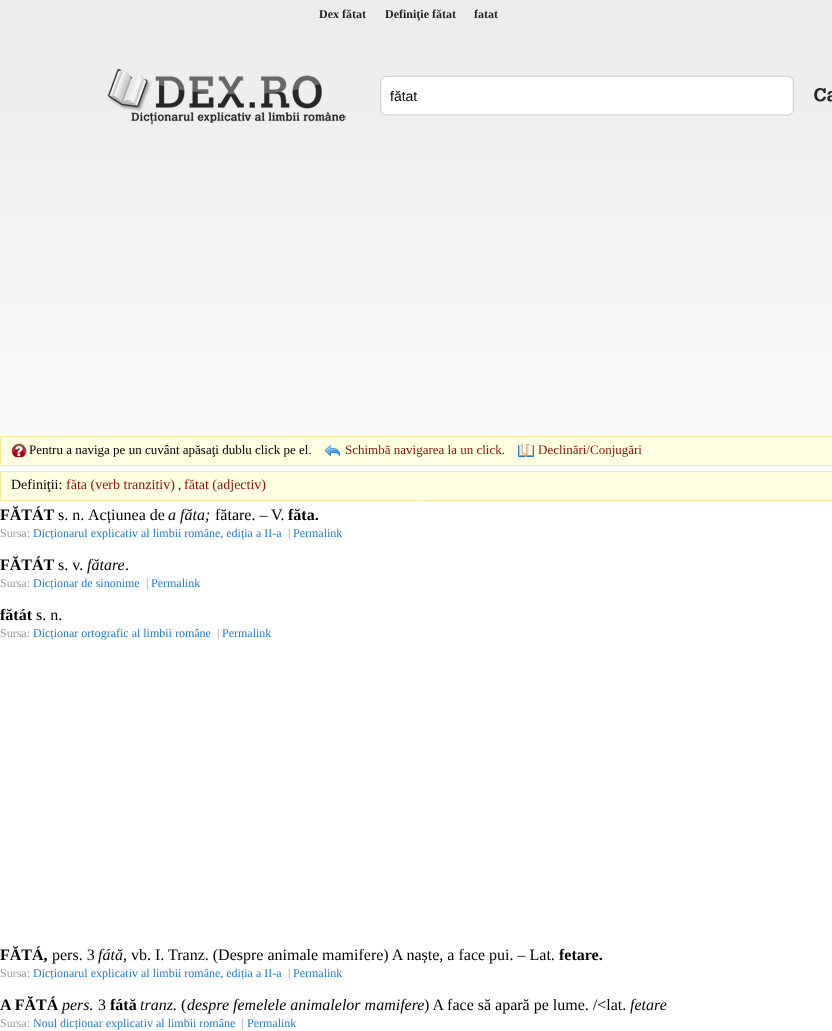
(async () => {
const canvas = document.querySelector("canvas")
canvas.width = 832
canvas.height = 1031
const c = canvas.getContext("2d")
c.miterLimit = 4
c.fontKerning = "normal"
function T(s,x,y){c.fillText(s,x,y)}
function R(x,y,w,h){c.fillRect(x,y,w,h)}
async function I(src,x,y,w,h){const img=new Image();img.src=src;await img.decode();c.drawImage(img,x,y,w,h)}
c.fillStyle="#fff"
R(0,0,832,1031)
await I("1.png",0,0,832,436)
c.font="bold 12px Liberation Serif"
c.fillStyle="#222"
T("Dex fătat",319,18)
T("Definiţie fătat",385,18)
T("fatat",474,18)
await I("2.png",107,69,239,56)
await I("3.png",380,75,414,41)
c.font="14px Liberation Sans"
c.fillStyle="#000"
T("fătat",390,101)
await I("4.png",814,88,18,14)
c.fillStyle="#ffffe1"
c.beginPath()
c.rect(.5,436.5,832,29)
c.fill()
c.strokeStyle="#f9e795"
c.stroke()
await I("5.png",11,443,16,14)
c.font="13px Liberation Serif"
c.fillStyle="#000"
T("Pentru a naviga pe un cuvânt apăsaţi dublu click pe el.",29,454)
await I("6.png",325,445,15,11)
c.fillStyle="#8e0c0c"
T("Schimbă navigarea la un click.",345,454)
await I("7.png",518,443,16,14)
T("Declinări/Conjugări",538,454)
c.fillStyle="#ffffe1"
c.beginPath()
c.rect(.5,471.5,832,29)
c.fill()
c.stroke()
c.font="14px Liberation Serif"
c.fillStyle="#000"
T("Definiţii:",11,489)
c.fillStyle="#8e0c0c"
T("făta (verb tranzitiv)",66,489)
c.font="13px Liberation Serif"
c.fillStyle="#000"
T(",",178,489)
c.font="14px Liberation Serif"
c.fillStyle="#8e0c0c"
T("fătat (adjectiv)",184,489)
c.font="bold 16px Liberation Serif"
c.fillStyle="#000"
T("FĂTÁT",0,520)
c.font="16px Liberation Serif"
T("s. n.",58,520)
T("Acțiunea de",88,520)
c.font="italic 16px Liberation Serif"
T("a făta;",168,520)
c.font="16px Liberation Serif"
T("fătare. – V.",215,520)
c.font="bold 16px Liberation Serif"
T("făta.",288,520)
c.font="12px Liberation Serif"
c.fillStyle="#999"
T("Sursa:",0,537)
c.fillStyle="#277bc9"
T("Dicționarul explicativ al limbii române, ediția a II-a",33,537)
c.fillStyle="#999"
T("|",288,537)
c.fillStyle="#277bc9"
T("Permalink",293,537)
c.font="bold 16px Liberation Serif"
c.fillStyle="#000"
T("FĂTÁT",0,570)
c.font="16px Liberation Serif"
T("s. v.",58,570)
c.font="italic 16px Liberation Serif"
T("fătare",87,570)
c.font="16px Liberation Serif"
T(".",125,570)
c.font="12px Liberation Serif"
c.fillStyle="#999"
T("Sursa:",0,587)
c.fillStyle="#277bc9"
T("Dicționar de sinonime",33,587)
c.fillStyle="#999"
T("|",146,587)
c.fillStyle="#277bc9"
T("Permalink",151,587)
c.font="bold 16px Liberation Serif"
c.fillStyle="#000"
T("fătát",0,620)
c.font="16px Liberation Serif"
T("s. n.",36,620)
c.font="12px Liberation Serif"
c.fillStyle="#999"
T("Sursa:",0,637)
c.fillStyle="#277bc9"
T("Dicționar ortografic al limbii române",33,637)
c.fillStyle="#999"
T("|",217,637)
c.fillStyle="#277bc9"
T("Permalink",222,637)
c.font="bold 16px Liberation Serif"
c.fillStyle="#000"
T("FĂTÁ,",0,960)
c.font="16px Liberation Serif"
T("pers. 3",52,960)
c.font="italic 16px Liberation Serif"
T("fátă,",98,960)
c.font="16px Liberation Serif"
T("vb. I. Tranz. (Despre animale mamifere) A naște, a face pui. – Lat.",131,960)
c.font="bold 16px Liberation Serif"
T("fetare.",559,960)
c.font="12px Liberation Serif"
c.fillStyle="#999"
T("Sursa:",0,977)
c.fillStyle="#277bc9"
T("Dicționarul explicativ al limbii române, ediția a II-a",33,977)
c.fillStyle="#999"
T("|",288,977)
c.fillStyle="#277bc9"
T("Permalink",293,977)
c.font="bold 16px Liberation Serif"
c.fillStyle="#000"
T("A FĂTÁ",0,1010)
c.font="italic 16px Liberation Serif"
T("pers.",62,1010)
c.font="16px Liberation Serif"
T("3",98,1010)
c.font="bold 16px Liberation Serif"
T("fátă",110,1010)
c.font="italic 16px Liberation Serif"
T("tranz.",140,1010)
c.font="16px Liberation Serif"
T("(",181,1010)
c.font="italic 16px Liberation Serif"
T("despre femelele animalelor mamifere",187,1010)
c.font="16px Liberation Serif"
T(") A face să apară pe lume. /<lat.",424,1010)
c.font="italic 16px Liberation Serif"
T("fetare",630,1010)
c.font="12px Liberation Serif"
c.fillStyle="#999"
T("Sursa:",0,1027)
c.fillStyle="#277bc9"
T("Noul dicționar explicativ al limbii române",33,1027)
c.fillStyle="#999"
T("|",241,1027)
c.fillStyle="#277bc9"
T("Permalink",247,1027)
})()
